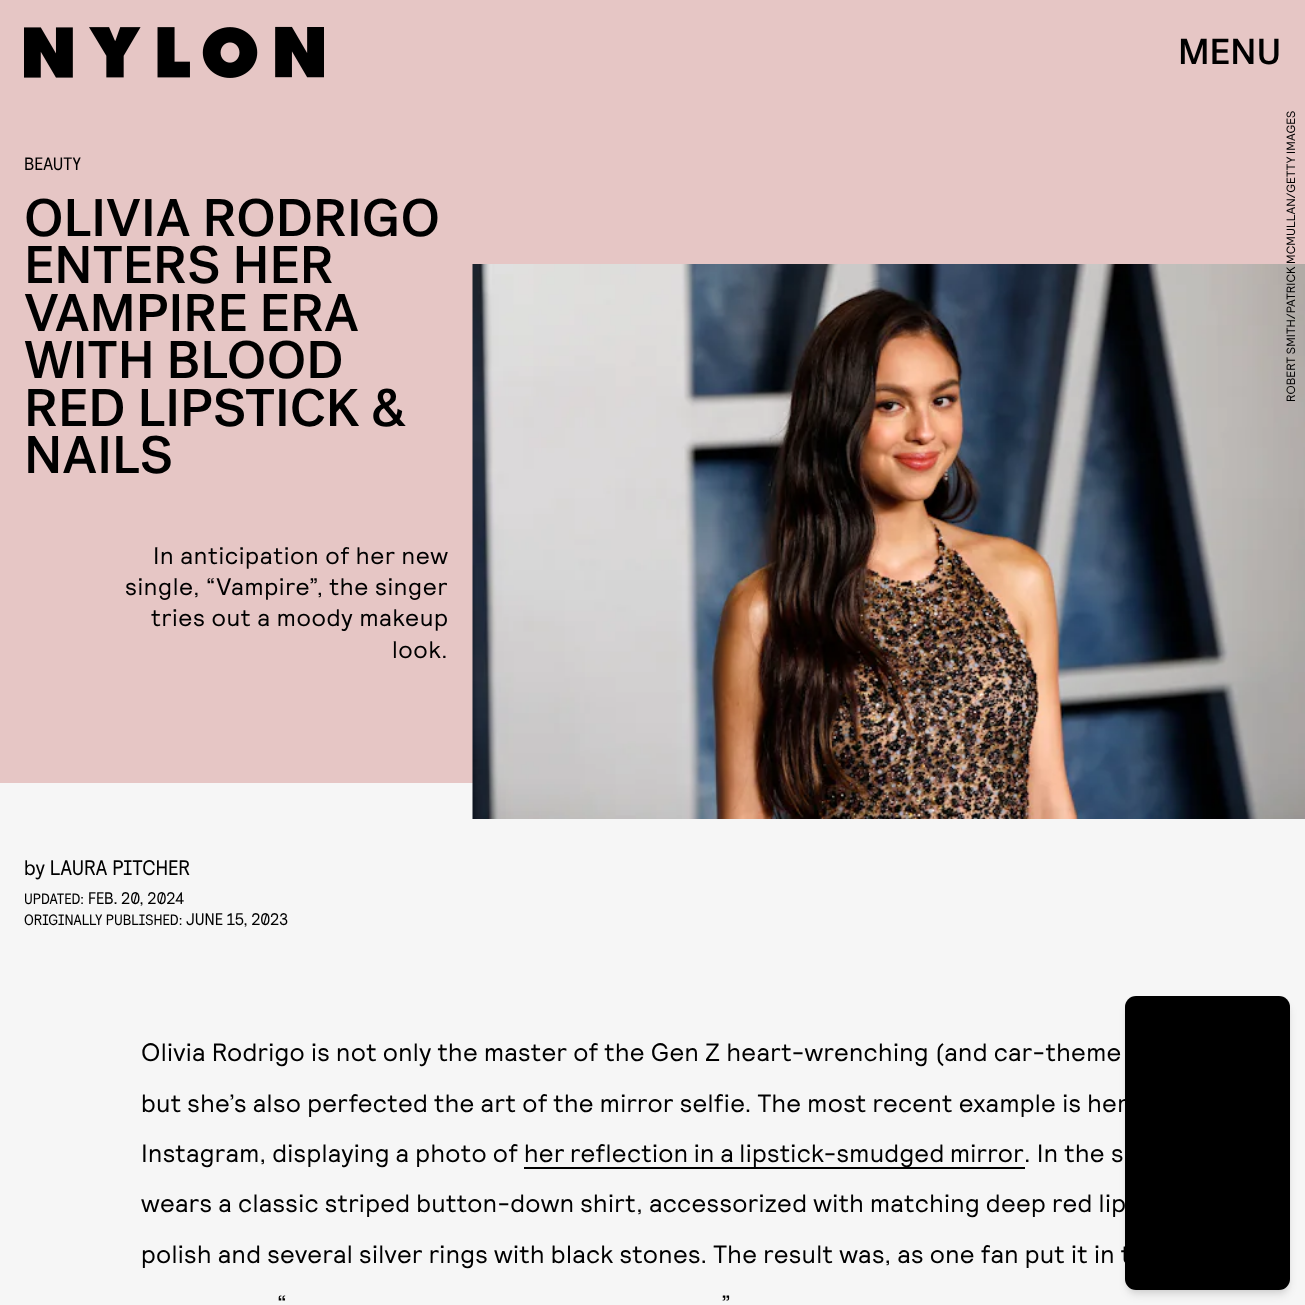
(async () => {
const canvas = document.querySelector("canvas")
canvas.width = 1305
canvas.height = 1305
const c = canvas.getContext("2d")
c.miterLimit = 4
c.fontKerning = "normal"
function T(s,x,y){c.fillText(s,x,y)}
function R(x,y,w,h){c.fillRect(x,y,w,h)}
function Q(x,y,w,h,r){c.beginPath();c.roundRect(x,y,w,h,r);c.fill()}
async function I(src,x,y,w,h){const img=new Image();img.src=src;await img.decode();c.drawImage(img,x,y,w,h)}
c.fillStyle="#f6f6f6"
R(0,0,1305,1305)
c.fillStyle="#e6c6c5"
R(0,0,1305,783)
await I("1.png",24,26,300,52)
c.font="500 36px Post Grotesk"
c.fillStyle="#000"
T("MENU",1178,64)
c.font="18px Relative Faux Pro"
T("BEAUTY",24,170)
c.font="500 52.75px Post Grotesk"
T("OLIVIA RODRIGO",24,236)
T("ENTERS HER",24,283)
T("VAMPIRE ERA",24,331)
T("WITH BLOOD",24,378)
T("RED LIPSTICK &",24,426)
T("NAILS",24,473)
c.letterSpacing="0.6px"
c.font="24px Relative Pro"
T("In anticipation of her new",153,564)
T("single, “Vampire”, the singer",125,595)
T("tries out a moody makeup",151,626)
T("look.",392,658)
c.letterSpacing="0px"
c.font="21px Relative Faux Pro"
T("by LAURA PITCHER",24,875)
c.font="15px Relative Faux Pro"
T("UPDATED:",24,904)
c.font="16.75px Relative Faux Pro"
T("FEB. 20, 2024",88,904)
c.font="15px Relative Faux Pro"
T("ORIGINALLY PUBLISHED:",24,925)
c.font="16.75px Relative Faux Pro"
T("JUNE 15, 2023",186,925)
await I("2.png",472,264,833,555)
c.font="12px Relative Pro"
c.save()
c.translate(1295,402)
c.rotate(-90 * Math.PI / 180)
c.fillText("ROBERT SMITH/PATRICK MCMULLAN/GETTY IMAGES",0,0)
c.restore()
c.letterSpacing="0.3px"
c.font="25.2px Relative Pro"
T("Olivia Rodrigo is not only the master of the Gen Z heart-wrenching (and car-theme",141,1061)
T("but she’s also perfected the art of the mirror selfie. The most recent example is her",141,1112)
T("Instagram, displaying a photo of",141,1162)
R(524,1167,501,2)
c.wordSpacing="-0.5px"
T("her reflection in a lipstick-smudged mirror",524,1162)
c.wordSpacing="0px"
T(". In the s",1024,1162)
T("wears a classic striped button-down shirt, accessorized with matching deep red lip",141,1212)
T("polish and several silver rings with black stones. The result was, as one fan put it in t",141,1263)
T("“",277,1313)
T("”",721,1313)
c.fillStyle="#0000001a"
c.filter="blur(3px)"
c.beginPath()
c.roundRect(1128,1002,159,288,8)
c.fill()
c.filter="none"
c.filter="blur(4.5px)"
c.beginPath()
c.roundRect(1127,1004,162,291,9)
c.fill()
c.filter="none"
c.fillStyle="#000"
Q(1125,996,165,294,11)
})()
